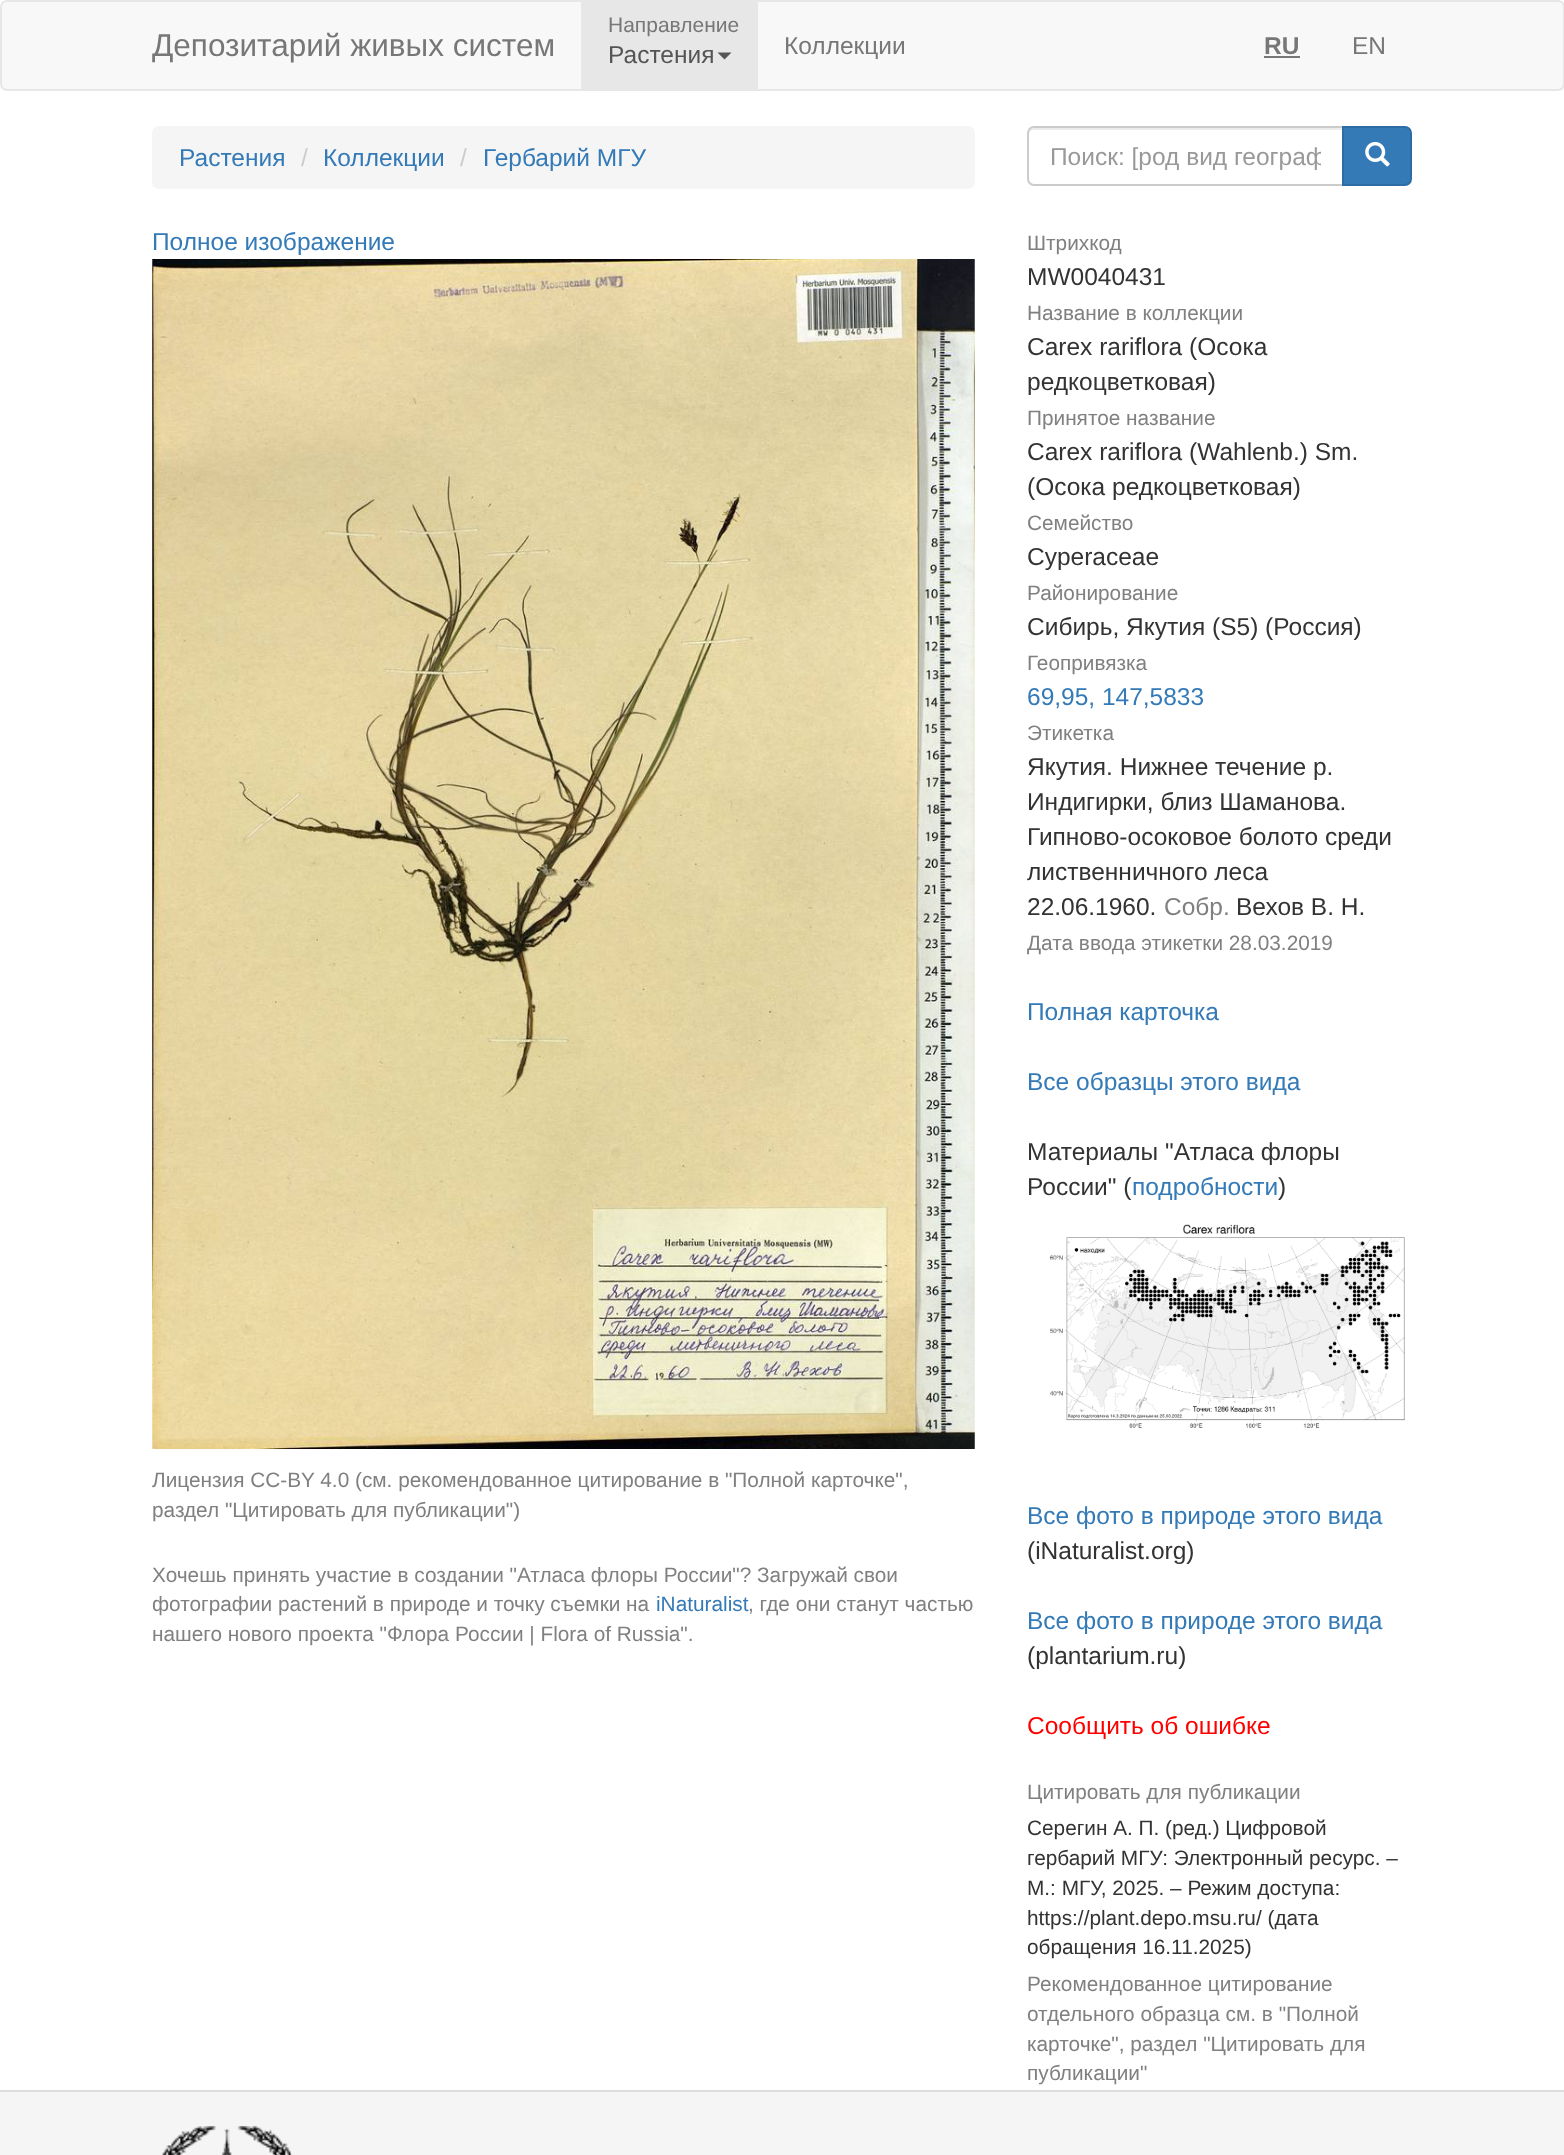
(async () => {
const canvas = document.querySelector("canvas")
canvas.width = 1564
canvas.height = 2155
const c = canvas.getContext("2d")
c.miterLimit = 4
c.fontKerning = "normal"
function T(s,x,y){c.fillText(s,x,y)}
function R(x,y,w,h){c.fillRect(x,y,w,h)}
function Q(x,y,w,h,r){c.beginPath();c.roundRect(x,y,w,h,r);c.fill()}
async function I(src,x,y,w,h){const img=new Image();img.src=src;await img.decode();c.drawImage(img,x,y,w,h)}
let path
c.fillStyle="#fff"
R(0,0,1564,2155)
c.fillStyle="#f8f8f8"
c.beginPath()
c.roundRect(1,1,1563,89,6)
c.fill()
c.strokeStyle="#e7e7e7"
c.lineWidth=2
c.stroke()
c.font="31.5px Liberation Sans"
c.fillStyle="#777"
T("Депозитарий живых систем",152,56)
c.fillStyle="#e7e7e7"
R(581,2,177,87)
c.font="21px Liberation Sans"
c.fillStyle="#777"
T("Направление",608,32)
c.font="24.5px Liberation Sans"
c.fillStyle="#555"
T("Растения",608,63)
path = new Path2D("M717.5 52.5h14l-7 7z")
c.fill(path)
c.fillStyle="#777"
T("Коллекции",784,54)
c.font="bold 24.5px Liberation Sans"
T("RU",1264,54)
R(1264,56,36,2)
c.font="24.5px Liberation Sans"
T("EN",1352,54)
c.fillStyle="#f5f5f5"
Q(152,126,823,63,7)
c.fillStyle="#337ab7"
T("Растения",179,166)
c.fillStyle="#ccc"
T("/",301,166)
c.fillStyle="#337ab7"
T("Коллекции",323,166)
c.fillStyle="#ccc"
T("/",460,166)
c.fillStyle="#337ab7"
T("Гербарий МГУ",483,166)
c.fillStyle="#ececec"
path = new Path2D("M1034 130h308v-2h-309c-4 1-4 4-4 7c0-3 2-5 5-5z")
c.fill(path)
c.beginPath()
c.roundRect(1028,127,315,58,[6,0,0,6])
c.strokeStyle="#ccc"
c.stroke()
c.save()
c.beginPath()
c.rect(1050,142,271,28)
c.clip()
c.fillStyle="#999"
T("Поиск: [род вид географ",1050,165)
c.restore()
c.fillStyle="#337ab7"
c.beginPath()
c.roundRect(1343,127,68,58,[0,6,6,0])
c.fill()
c.strokeStyle="#2e6da4"
c.stroke()
await I("1.png",1365,141,25,26)
T("Полное изображение",152,250)
await I("2.png",152,259,823,1190)
c.font="20.8px Liberation Sans"
c.fillStyle="#808080"
T("Лицензия CC-BY 4.0 (см. рекомендованное цитирование в \"Полной карточке\",",152,1487)
T("раздел \"Цитировать для публикации\")",152,1517)
T("Хочешь принять участие в создании \"Атласа флоры России\"? Загружай свои",152,1582)
T("фотографии растений в природе и точку съемки на",152,1611)
c.fillStyle="#337ab7"
T("iNaturalist",656,1611)
c.fillStyle="#808080"
T(", где они станут частью",748,1611)
T("нашего нового проекта \"Флора России | Flora of Russia\".",152,1641)
T("Штрихкод",1027,250)
c.font="24.5px Liberation Sans"
c.fillStyle="#333"
T("MW0040431",1027,285)
c.font="20.8px Liberation Sans"
c.fillStyle="#808080"
T("Название в коллекции",1027,320)
c.font="24.5px Liberation Sans"
c.fillStyle="#333"
T("Carex rariflora (Осока",1027,355)
T("редкоцветковая)",1027,390)
c.font="20.8px Liberation Sans"
c.fillStyle="#808080"
T("Принятое название",1027,425)
c.font="24.5px Liberation Sans"
c.fillStyle="#333"
T("Carex rariflora (Wahlenb.) Sm.",1027,460)
T("(Осока редкоцветковая)",1027,495)
c.font="20.8px Liberation Sans"
c.fillStyle="#808080"
T("Семейство",1027,530)
c.font="24.5px Liberation Sans"
c.fillStyle="#333"
T("Cyperaceae",1027,565)
c.font="20.8px Liberation Sans"
c.fillStyle="#808080"
T("Районирование",1027,600)
c.font="24.5px Liberation Sans"
c.fillStyle="#333"
T("Сибирь, Якутия (S5) (Россия)",1027,635)
c.font="20.8px Liberation Sans"
c.fillStyle="#808080"
T("Геопривязка",1027,670)
c.font="24.5px Liberation Sans"
c.fillStyle="#337ab7"
T("69,95, 147,5833",1027,705)
c.font="20.8px Liberation Sans"
c.fillStyle="#808080"
T("Этикетка",1027,740)
c.font="24.5px Liberation Sans"
c.fillStyle="#333"
T("Якутия. Нижнее течение р.",1027,775)
T("Индигирки, близ Шаманова.",1027,810)
T("Гипново-осоковое болото среди",1027,845)
T("лиственничного леса",1027,880)
T("22.06.1960.",1027,915)
c.fillStyle="#808080"
T("Собр.",1164,915)
c.fillStyle="#333"
T("Вехов В. Н.",1236,915)
c.font="20.8px Liberation Sans"
c.fillStyle="#808080"
T("Дата ввода этикетки 28.03.2019",1027,950)
c.font="24.5px Liberation Sans"
c.fillStyle="#337ab7"
T("Полная карточка",1027,1020)
T("Все образцы этого вида",1027,1090)
c.fillStyle="#333"
T("Материалы \"Атласа флоры",1027,1160)
T("России\" (",1027,1195)
c.fillStyle="#337ab7"
T("подробности",1132,1195)
c.fillStyle="#333"
T(")",1278,1195)
await I("3.png",1049,1224,356,204)
c.fillStyle="#337ab7"
T("Все фото в природе этого вида",1027,1524)
c.fillStyle="#333"
T("(iNaturalist.org)",1027,1559)
c.fillStyle="#337ab7"
T("Все фото в природе этого вида",1027,1629)
c.fillStyle="#333"
T("(plantarium.ru)",1027,1664)
c.fillStyle="#f00"
T("Сообщить об ошибке",1027,1734)
c.font="20.8px Liberation Sans"
c.fillStyle="#808080"
T("Цитировать для публикации",1027,1799)
c.fillStyle="#333"
T("Серегин А. П. (ред.) Цифровой",1027,1835)
T("гербарий МГУ: Электронный ресурс. –",1027,1865)
T("М.: МГУ, 2025. – Режим доступа:",1027,1895)
T("https://plant.depo.msu.ru/ (дата",1027,1925)
T("обращения 16.11.2025)",1027,1954)
c.fillStyle="#808080"
T("Рекомендованное цитирование",1027,1991)
T("отдельного образца см. в \"Полной",1027,2021)
T("карточке\", раздел \"Цитировать для",1027,2051)
T("публикации\"",1027,2080)
c.fillStyle="#f5f5f5"
R(0,2092,1564,63)
c.fillStyle="#ddd"
R(0,2090,1564,2)
await I("4.png",162,2126,131,29)
})()
